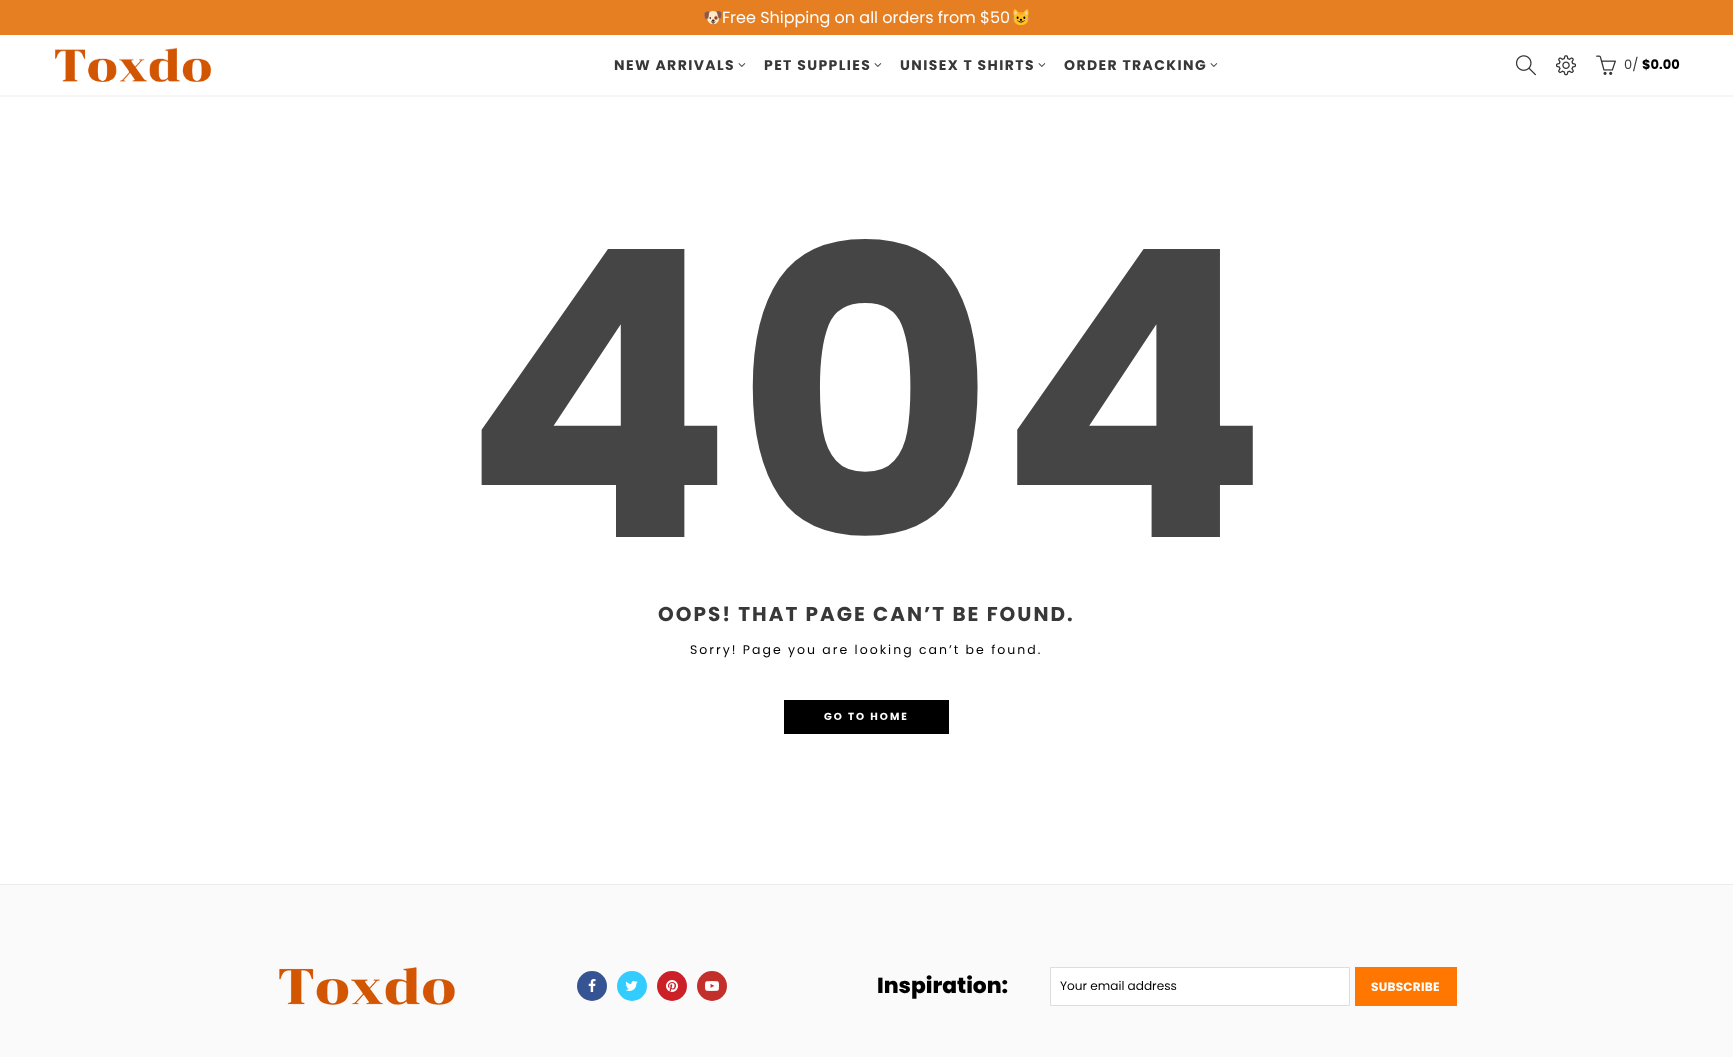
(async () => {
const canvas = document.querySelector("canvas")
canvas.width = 1733
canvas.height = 1057
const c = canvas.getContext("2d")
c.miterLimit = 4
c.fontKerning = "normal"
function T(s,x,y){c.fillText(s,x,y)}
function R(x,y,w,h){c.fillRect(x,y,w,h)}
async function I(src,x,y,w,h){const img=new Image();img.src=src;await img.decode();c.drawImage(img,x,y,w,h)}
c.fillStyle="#fff"
R(0,0,1733,1057)
c.fillStyle="#e67e22"
R(0,0,1733,35)
c.font="16px Noto Color Emoji"
c.fillStyle="#fff"
T("🐶",703,23)
c.font="16px Poppins"
T("Free Shipping on all orders from $50",722,23)
c.font="16px Noto Color Emoji"
T("😺",1011,23)
c.fillStyle="#f5f5f5"
R(0,95,1733,2)
await I("1.png",55,47,156,35)
c.letterSpacing="1.4px"
c.font="bold 14px Poppins"
c.fillStyle="#383838"
T("NEW ARRIVALS",614,70)
await I("2.png",738,63,8,4)
T("PET SUPPLIES",764,70)
await I("2.png",874,63,8,4)
T("UNISEX T SHIRTS",900,70)
await I("2.png",1038,63,8,4)
T("ORDER TRACKING",1064,70)
await I("2.png",1210,63,8,4)
await I("3.png",1516,55,20,21)
await I("4.png",1556,55,20,21)
await I("5.png",1596,55,20,20)
c.letterSpacing="0px"
c.font="13px Poppins"
T("0/",1624,69)
c.font="bold 13px Poppins"
c.fillStyle="#000"
T("$0.00",1642,69)
c.letterSpacing="2px"
c.font="bold 400px Poppins"
c.fillStyle="#454545"
T("404",462,537)
c.font="bold 20px Poppins"
c.fillStyle="#383838"
T("OOPS! THAT PAGE CAN’T BE FOUND.",658,621)
c.font="12.5px Poppins"
c.fillStyle="#000"
T("Sorry! Page you are looking can’t be found.",690,654)
R(784,700,165,34)
c.font="bold 10.25px Poppins"
c.fillStyle="#fff"
T("GO TO HOME",824,720)
c.fillStyle="#fafafa"
R(0,885,1733,172)
c.fillStyle="#ececec"
R(0,884,1733,1)
await I("6.png",279,967,176,38)
c.fillStyle="#365493"
c.beginPath()
c.arc(592,986,15,0,7)
c.fill()
await I("7.png",588,979,8,13)
c.fillStyle="#3cf"
c.beginPath()
c.arc(632,986,15,0,7)
c.fill()
await I("8.png",625,981,13,10)
c.fillStyle="#cb2027"
c.beginPath()
c.arc(672,986,15,0,7)
c.fill()
await I("9.png",666,980,12,12)
c.fillStyle="#c32f2b"
c.beginPath()
c.arc(712,986,15,0,7)
c.fill()
await I("10.png",705,981,14,10)
c.letterSpacing="0px"
c.font="800 21.75px Poppins"
c.fillStyle="#000"
T("Inspiration:",877,993)
c.fillStyle="#fff"
c.beginPath()
c.rect(1050.5,967.5,299,38)
c.fill()
c.strokeStyle="#ddd"
c.stroke()
c.font="12.1px Poppins"
c.fillStyle="#000"
T("Your email address",1060,990)
c.fillStyle="#f70"
R(1355,967,102,39)
c.letterSpacing="0.25px"
c.font="bold 12.1px Poppins"
c.fillStyle="#fff"
T("SUBSCRIBE",1371,991)
})()
